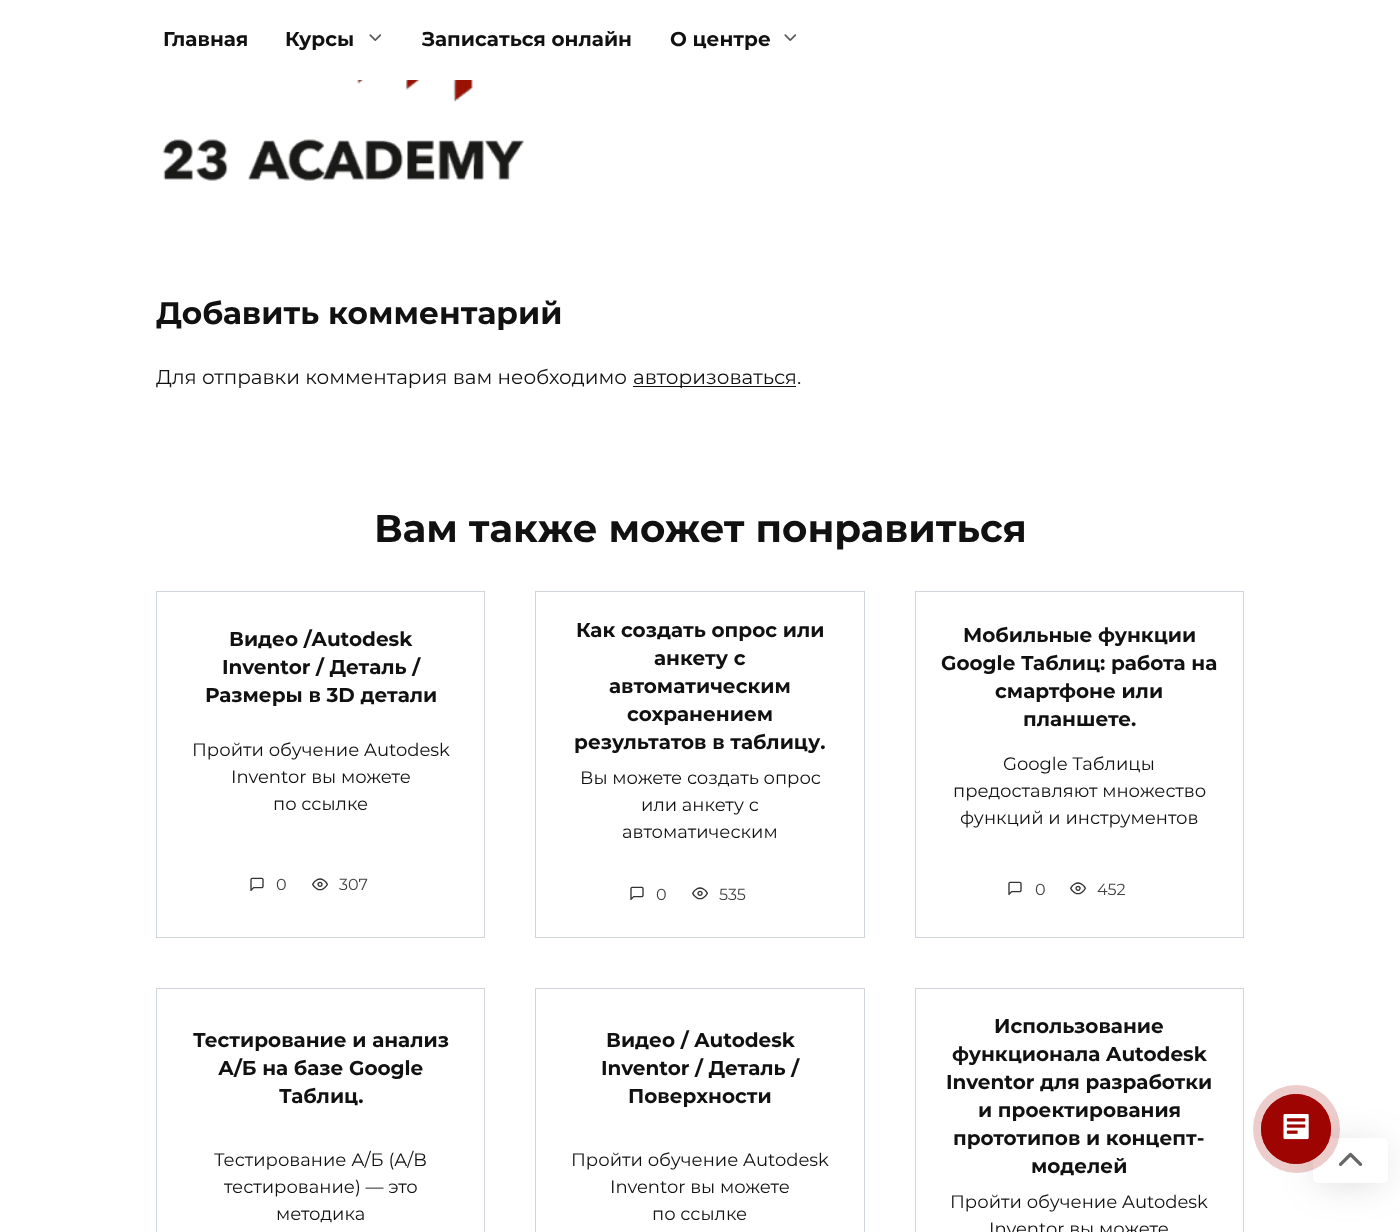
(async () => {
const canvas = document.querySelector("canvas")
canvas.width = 1400
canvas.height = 1232
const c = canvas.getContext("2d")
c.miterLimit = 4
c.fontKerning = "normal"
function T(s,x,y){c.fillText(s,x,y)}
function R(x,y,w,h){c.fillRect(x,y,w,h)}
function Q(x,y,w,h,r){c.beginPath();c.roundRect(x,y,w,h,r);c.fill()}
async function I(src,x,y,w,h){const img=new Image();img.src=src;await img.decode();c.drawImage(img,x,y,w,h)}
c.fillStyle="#fff"
R(0,0,1400,1232)
c.font="bold 20px Montserrat"
c.fillStyle="#111"
T("Главная",163,46)
T("Курсы",285,46)
c.font="20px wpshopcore"
c.fillStyle="#585858"
T("﹀",365,46)
c.font="bold 20px Montserrat"
c.fillStyle="#111"
T("Записаться онлайн",422,46)
T("О центре",670,46)
c.font="20px wpshopcore"
c.fillStyle="#585858"
T("﹀",780,46)
await I("1.png",162,80,362,101)
c.font="bold 31.25px Montserrat"
c.fillStyle="#111"
T("Добавить комментарий",156,324)
c.font="20px Montserrat"
T("Для отправки комментария вам необходимо",156,384)
R(633,386,163,1)
T("авторизоваться.",633,384)
c.font="bold 38.75px Montserrat"
T("Вам также может понравиться",374,542)
c.strokeStyle="#ced4da"
c.strokeRect(156.5,591.5,328,346)
c.font="bold 20px Montserrat"
T("Видео /Autodesk",229,646)
T("Inventor / Деталь /",222,674)
T("Размеры в 3D детали",205,702)
c.font="18px Montserrat"
T("Пройти обучение Autodesk",192,756)
T("Inventor вы можете",231,783)
T("по ссылке",273,810)
c.font="16px wpshopcore"
c.fillStyle="#333"
T("💬",249,891)
c.font="16px Montserrat"
c.fillStyle="#414141"
T("0",276,890)
c.font="16px wpshopcore"
c.fillStyle="#333"
T("👀",312,891)
c.font="16px Montserrat"
c.fillStyle="#414141"
T("307",339,890)
c.strokeRect(535.5,591.5,329,346)
c.font="bold 20px Montserrat"
c.fillStyle="#111"
T("Как создать опрос или",576,637)
T("анкету с",654,665)
T("автоматическим",609,693)
T("сохранением",627,721)
T("результатов в таблицу.",574,749)
c.font="18px Montserrat"
T("Вы можете создать опрос",580,784)
T("или анкету с",641,811)
T("автоматическим",622,838)
c.font="16px wpshopcore"
c.fillStyle="#333"
T("💬",629,900)
c.font="16px Montserrat"
c.fillStyle="#414141"
T("0",656,900)
c.font="16px wpshopcore"
c.fillStyle="#333"
T("👀",692,900)
c.font="16px Montserrat"
c.fillStyle="#414141"
T("535",719,900)
c.strokeRect(915.5,591.5,328,346)
c.font="bold 20px Montserrat"
c.fillStyle="#111"
T("Мобильные функции",963,642)
T("Google Таблиц: работа на",941,670)
T("смартфоне или",995,698)
T("планшете.",1023,726)
c.font="18px Montserrat"
T("Google Таблицы",1003,770)
T("предоставляют множество",953,797)
T("функций и инструментов",960,824)
c.font="16px wpshopcore"
c.fillStyle="#333"
T("💬",1007,895)
c.font="16px Montserrat"
c.fillStyle="#414141"
T("0",1035,895)
c.font="16px wpshopcore"
c.fillStyle="#333"
T("👀",1070,895)
c.font="16px Montserrat"
c.fillStyle="#414141"
T("452",1097,895)
c.strokeRect(156.5,988.5,328,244)
c.font="bold 20px Montserrat"
c.fillStyle="#111"
T("Тестирование и анализ",193,1047)
T("А/Б на базе Google",218,1075)
T("Таблиц.",279,1103)
c.font="18px Montserrat"
T("Тестирование А/Б (A/B",214,1166)
T("тестирование) — это",224,1193)
T("методика",276,1220)
c.strokeRect(535.5,988.5,329,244)
c.font="bold 20px Montserrat"
T("Видео / Autodesk",606,1047)
T("Inventor / Деталь /",601,1075)
T("Поверхности",628,1103)
c.font="18px Montserrat"
T("Пройти обучение Autodesk",571,1166)
T("Inventor вы можете",610,1193)
T("по ссылке",652,1220)
c.strokeRect(915.5,988.5,328,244)
c.font="bold 20px Montserrat"
T("Использование",994,1033)
T("функционала Autodesk",952,1061)
T("Inventor для разработки",946,1089)
T("и проектирования",978,1117)
T("прототипов и концепт-",953,1145)
T("моделей",1031,1173)
c.font="18px Montserrat"
T("Пройти обучение Autodesk",950,1208)
T("Inventor вы можете",989,1235)
c.fillStyle="#6666664d"
c.filter="blur(19px)"
c.beginPath()
c.rect(1319,1148,62,32)
c.fill()
c.filter="none"
c.fillStyle="#fff"
Q(1313,1138,75,45,5)
c.font="40px wpshopcore"
c.fillStyle="#666"
T("︿",1330,1176)
c.fillStyle="#9e050233"
Q(1253,1085,87,88,43.5)
c.beginPath()
c.arc(1296,1129,34.5,0,7)
c.strokeStyle="#9e0502"
c.stroke()
c.fillStyle="#9e0502"
c.beginPath()
c.arc(1296,1129,35,0,7)
c.fill()
await I("2.png",1283,1114,26,26)
})()
